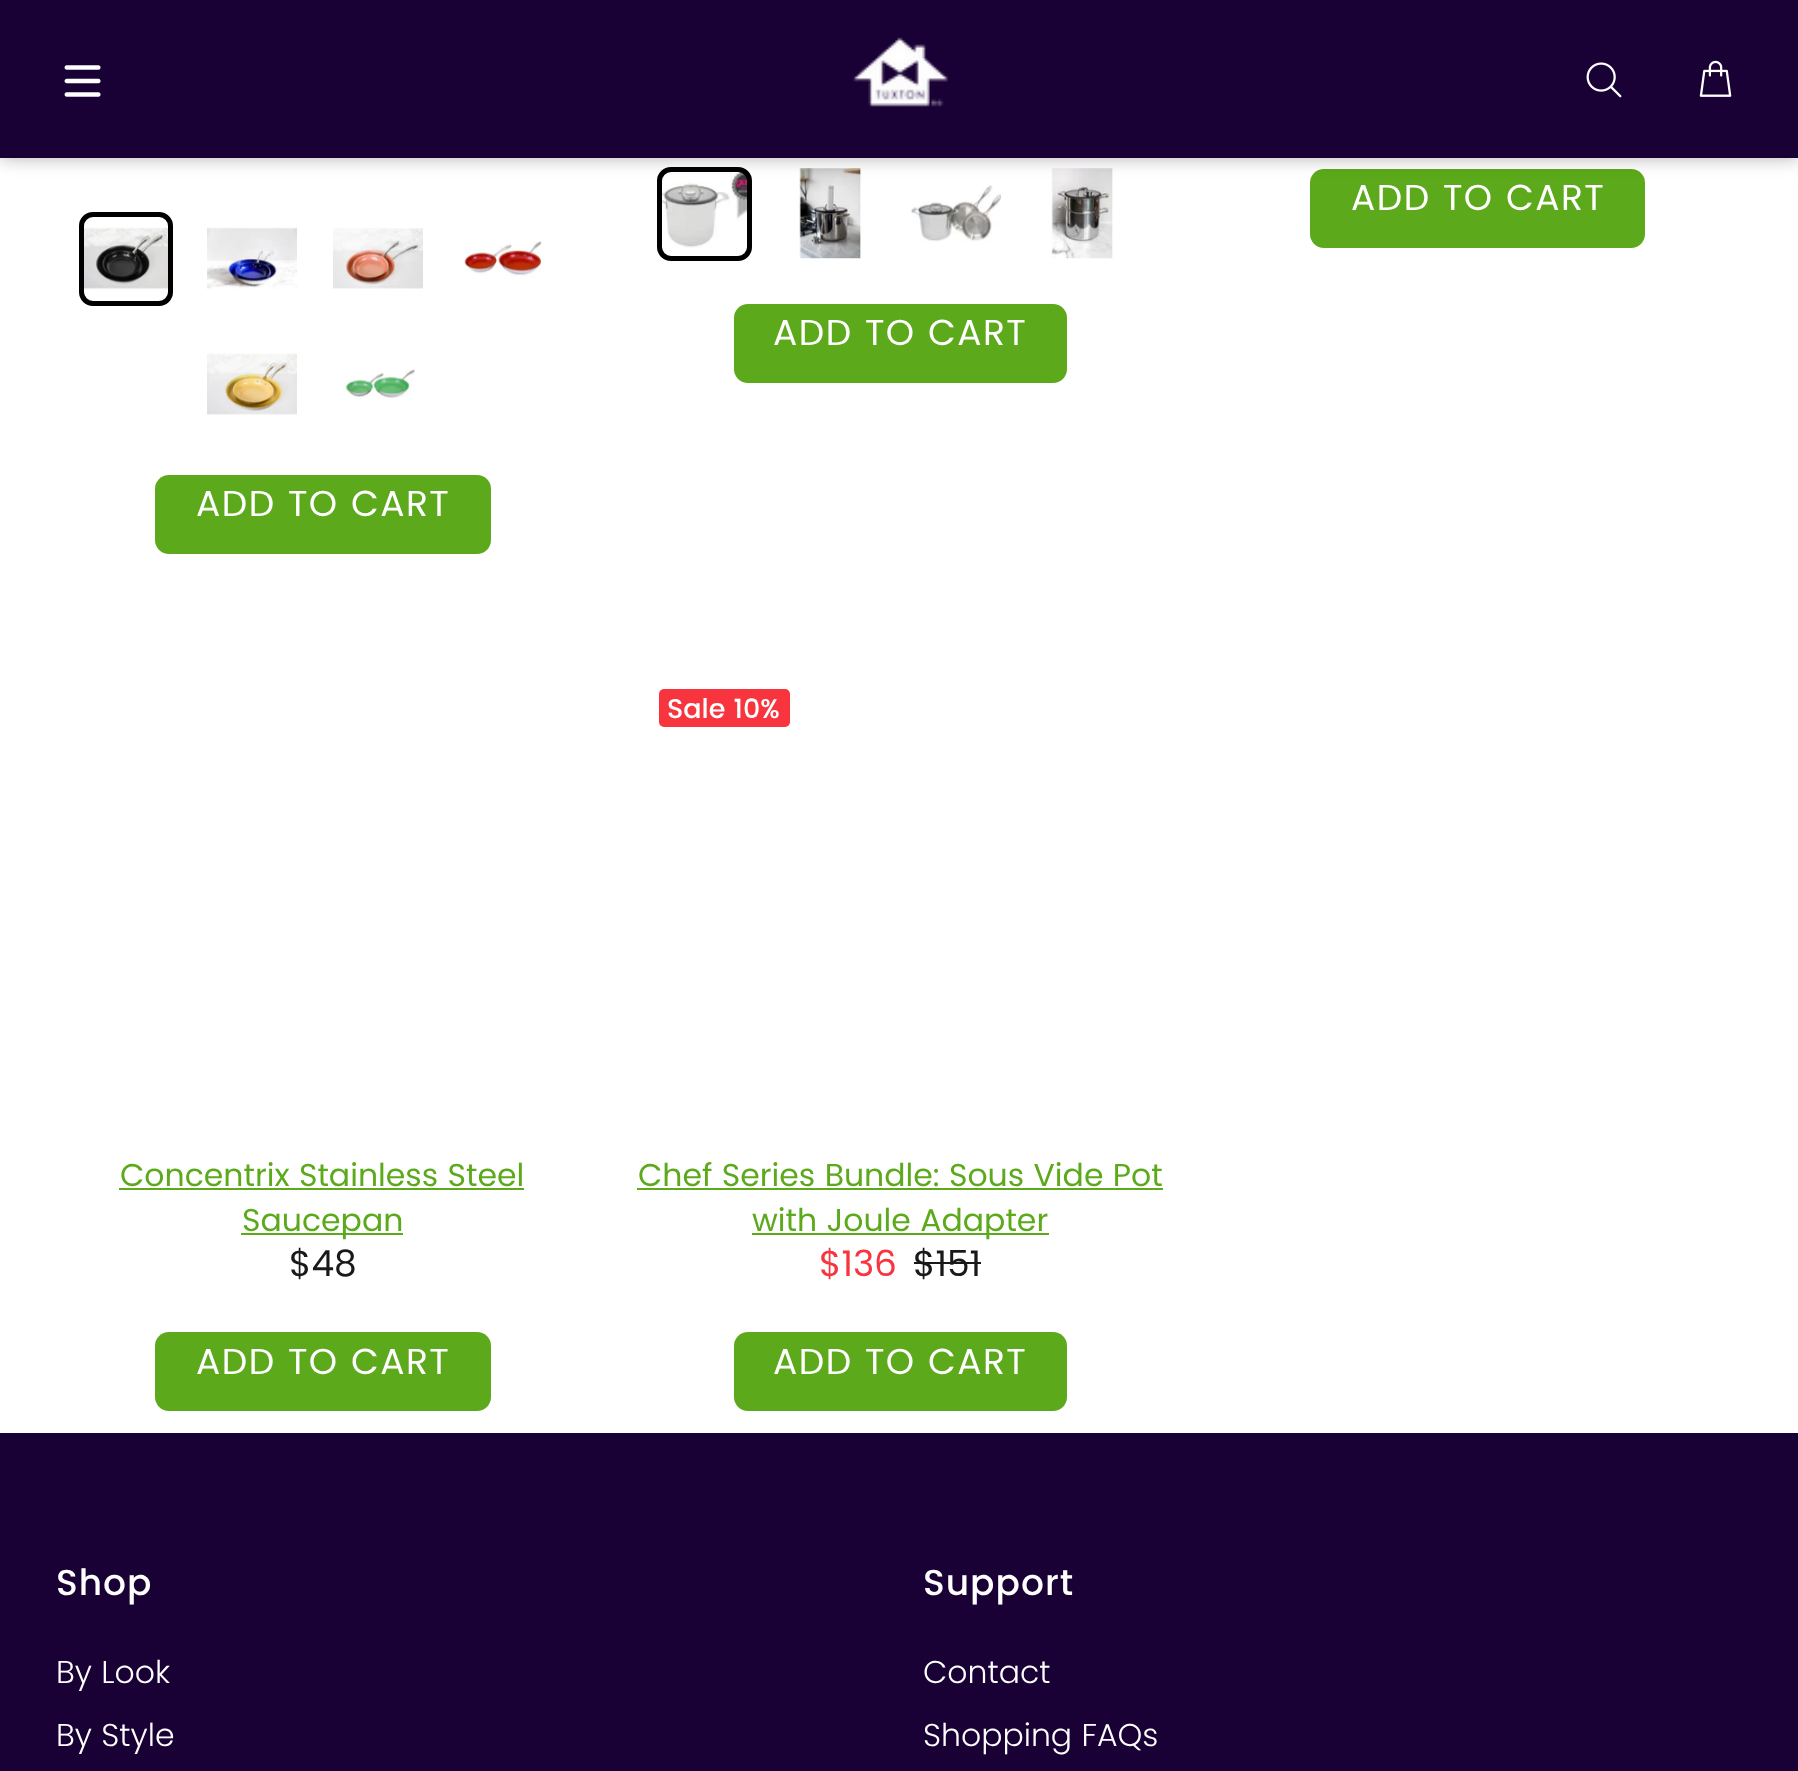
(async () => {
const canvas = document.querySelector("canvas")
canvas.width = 1798
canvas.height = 1771
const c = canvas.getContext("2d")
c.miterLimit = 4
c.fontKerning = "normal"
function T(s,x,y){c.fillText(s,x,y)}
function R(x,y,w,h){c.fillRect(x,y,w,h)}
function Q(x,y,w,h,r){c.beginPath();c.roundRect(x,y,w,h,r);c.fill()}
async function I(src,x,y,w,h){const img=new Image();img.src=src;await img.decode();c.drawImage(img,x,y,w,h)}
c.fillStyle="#fff"
R(0,0,1798,1771)
c.fillStyle="#5ca91b"
Q(1310,169,335,79,14)
await I("5.png",662,172,85,76)
c.beginPath()
c.roundRect(659.5,169.5,90,89,11.5)
c.strokeStyle="#000"
c.lineWidth=5
c.stroke()
await I("6.png",799,168,63,91)
await I("7.png",911,185,91,57)
await I("8.png",1051,168,62,91)
c.fillStyle="#0000004d"
c.filter="blur(9px)"
c.beginPath()
c.rect(0,0,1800,158)
c.fill()
c.filter="none"
c.fillStyle="#1a0135"
R(0,0,1798,158)
await I("1.png",64,65,37,32)
await I("2.png",852,37,96,70)
await I("3.png",1586,62,36,36)
await I("4.png",1699,60,33,37)
c.letterSpacing="1.5px"
c.font="36px Poppins"
c.fillStyle="#fff"
T("ADD TO CART",1351,210)
c.fillStyle="#5ca91b"
Q(734,304,333,79,14)
c.fillStyle="#fff"
T("ADD TO CART",773,345)
await I("9.png",84,227,84,63)
c.beginPath()
c.roundRect(81.5,214.5,89,89,11.5)
c.stroke()
await I("10.png",207,227,90,62)
await I("11.png",333,228,90,61)
await I("12.png",464,241,81,37)
await I("13.png",207,353,90,62)
await I("14.png",342,369,73,30)
c.fillStyle="#5ca91b"
Q(155,475,336,79,14)
c.fillStyle="#fff"
T("ADD TO CART",196,516)
c.letterSpacing="0px"
c.font="31.5px Poppins"
c.fillStyle="#5ca91b"
T("Concentrix Stainless Steel",120,1186)
R(119,1188,405,2)
R(241,1233,162,2)
T("Saucepan",242,1231)
c.font="36px Poppins"
c.fillStyle="#191919"
T("$48",289,1276)
c.fillStyle="#5ca91b"
Q(155,1332,336,79,14)
c.letterSpacing="1.5px"
c.fillStyle="#fff"
T("ADD TO CART",196,1374)
c.fillStyle="#f8353e"
Q(659,689,131,38,5)
c.letterSpacing="0px"
c.font="500 27px Poppins"
c.fillStyle="#fff"
T("Sale 10%",667,718)
c.font="31.5px Poppins"
c.fillStyle="#5ca91b"
T("Chef Series Bundle: Sous Vide Pot",638,1186)
R(637,1188,526,2)
R(752,1233,297,2)
T("with Joule Adapter",752,1231)
c.font="36px Poppins"
c.fillStyle="#f8353e"
T("$136",819,1276)
c.fillStyle="#191919"
T("$151",913,1276)
R(914,1262,67,2)
c.fillStyle="#5ca91b"
Q(734,1332,333,79,14)
c.letterSpacing="1.5px"
c.fillStyle="#fff"
T("ADD TO CART",773,1374)
c.fillStyle="#1a0135"
R(0,1433,1798,338)
c.letterSpacing="1px"
c.font="500 36px Poppins"
c.fillStyle="#fff"
T("Shop",56,1595)
c.letterSpacing="0px"
c.font="300 31.5px Poppins"
T("By Look",56,1683)
T("By Style",56,1746)
c.letterSpacing="1px"
c.font="500 36px Poppins"
T("Support",923,1595)
c.letterSpacing="0px"
c.font="300 31.5px Poppins"
T("Contact",923,1683)
T("Shopping FAQs",923,1746)
})()
